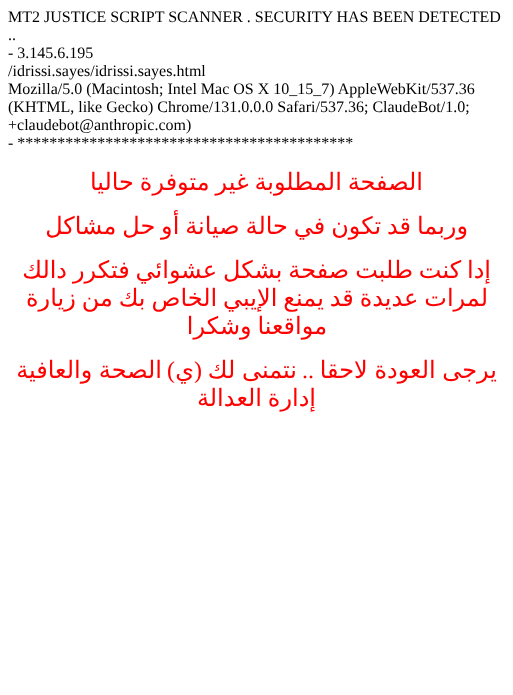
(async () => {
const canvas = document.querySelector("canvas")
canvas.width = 513
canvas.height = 695
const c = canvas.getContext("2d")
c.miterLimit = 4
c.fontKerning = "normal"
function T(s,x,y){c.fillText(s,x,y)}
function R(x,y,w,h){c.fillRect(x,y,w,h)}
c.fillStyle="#fff"
R(0,0,513,695)
c.font="16px Liberation Serif"
c.fillStyle="#000"
T("MT2 JUSTICE SCRIPT SCANNER . SECURITY HAS BEEN DETECTED",8,22)
T("..",8,40)
T("- 3.145.6.195",8,58)
T("/idrissi.sayes/idrissi.sayes.html",8,76)
T("Mozilla/5.0 (Macintosh; Intel Mac OS X 10_15_7) AppleWebKit/537.36",8,94)
T("(KHTML, like Gecko) Chrome/131.0.0.0 Safari/537.36; ClaudeBot/1.0;",8,112)
T("+claudebot@anthropic.com)",8,130)
T("- ******************************************",8,148)
c.wordSpacing="-1.75px"
c.direction="rtl"
c.font="24px DejaVu Sans"
c.fillStyle="#f00"
T("الصفحة المطلوبة غير متوفرة حاليا",423,190)
T("وربما قد تكون في حالة صيانة أو حل مشاكل",468,234)
T("إدا كنت طلبت صفحة بشكل عشوائي فتكرر دالك",491,278)
T("لمرات عديدة قد يمنع الإيبي الخاص بك من زيارة",488,306)
T("مواقعنا وشكرا",327,334)
c.wordSpacing="-1px"
T("الصحة والعافية",162,378)
c.wordSpacing="0px"
c.font="24px Liberation Serif"
T(")",175,378)
c.font="24px DejaVu Sans"
T("ي",194,378)
c.font="24px Liberation Serif"
T("(",202,378)
c.wordSpacing="-1px"
c.font="24px DejaVu Sans"
T("نتمنى لك",297,378)
c.wordSpacing="0px"
c.font="24px Liberation Serif"
T("..",314,378)
c.wordSpacing="-1px"
c.font="24px DejaVu Sans"
T("يرجى العودة لاحقا",497,378)
c.wordSpacing="-1.75px"
T("إدارة العدالة",316,406)
})()
